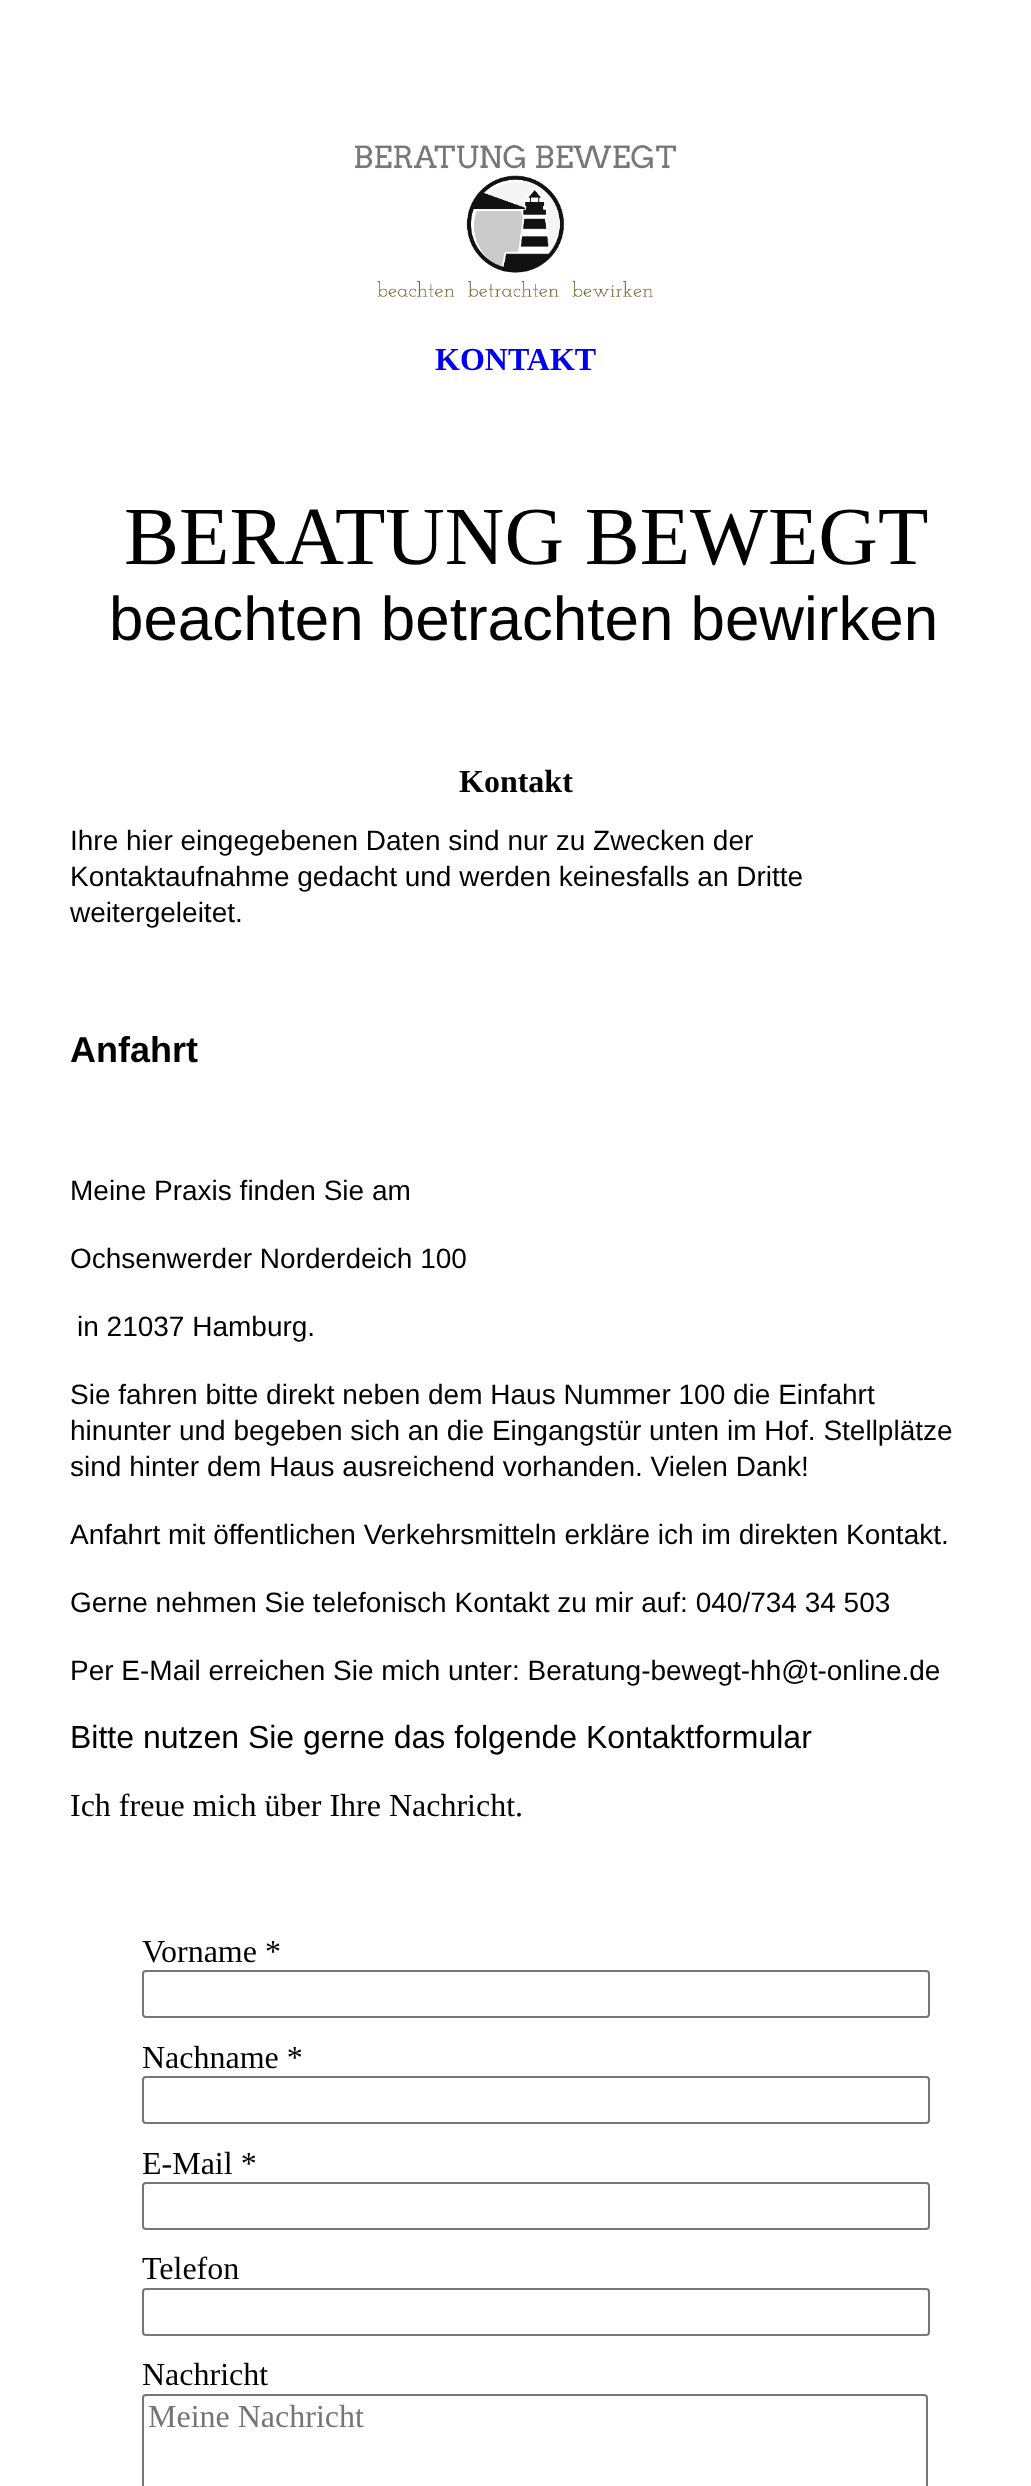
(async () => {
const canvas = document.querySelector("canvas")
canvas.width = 1031
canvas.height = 2486
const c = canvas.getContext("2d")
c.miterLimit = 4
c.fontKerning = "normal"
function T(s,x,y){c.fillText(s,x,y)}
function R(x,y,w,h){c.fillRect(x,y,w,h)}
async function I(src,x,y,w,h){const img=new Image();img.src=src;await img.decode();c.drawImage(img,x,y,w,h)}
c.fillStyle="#fff"
R(0,0,1031,2486)
await I("1.png",354,145,323,152)
c.font="bold 32px Liberation Serif"
c.fillStyle="#00e"
T("KONTAKT",435,370)
c.font="82.5px Liberation Serif"
c.fillStyle="#000"
T("BERATUNG BEWEGT",124,564)
c.font="61.9px Liberation Sans"
T("beachten betrachten bewirken",109,640)
c.font="bold 32px Liberation Serif"
T("Kontakt",459,792)
c.font="28px Liberation Sans"
T("Ihre hier eingegebenen Daten sind nur zu Zwecken der",70,850)
T("Kontaktaufnahme gedacht und werden keinesfalls an Dritte",70,886)
T("weitergeleitet.",70,922)
c.font="bold 36px Liberation Sans"
T("Anfahrt",70,1062)
c.font="28px Liberation Sans"
T("Meine Praxis finden Sie am",70,1200)
T("Ochsenwerder Norderdeich 100",70,1268)
T("in 21037 Hamburg.",77,1336)
T("Sie fahren bitte direkt neben dem Haus Nummer 100 die Einfahrt",70,1404)
T("hinunter und begeben sich an die Eingangstür unten im Hof. Stellplätze",70,1440)
T("sind hinter dem Haus ausreichend vorhanden. Vielen Dank!",70,1476)
T("Anfahrt mit öffentlichen Verkehrsmitteln erkläre ich im direkten Kontakt.",70,1544)
T("Gerne nehmen Sie telefonisch Kontakt zu mir auf: 040/734 34 503",70,1612)
T("Per E-Mail erreichen Sie mich unter: Beratung-bewegt-hh@t-online.de",70,1680)
c.font="32px Liberation Sans"
T("Bitte nutzen Sie gerne das folgende Kontaktformular",70,1748)
c.font="32px Liberation Serif"
T("Ich freue mich über Ihre Nachricht.",70,1816)
T("Vorname *",142,1962)
c.beginPath()
c.roundRect(143,1971,786,46,3)
c.strokeStyle="#767676"
c.lineWidth=2
c.stroke()
T("Nachname *",142,2068)
c.beginPath()
c.roundRect(143,2077,786,46,3)
c.stroke()
T("E-Mail *",142,2174)
c.beginPath()
c.roundRect(143,2183,786,46,3)
c.stroke()
T("Telefon",142,2279)
c.beginPath()
c.roundRect(143,2289,786,46,3)
c.stroke()
T("Nachricht",142,2385)
c.beginPath()
c.roundRect(143,2395,784,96,3)
c.stroke()
c.fillStyle="#757575"
T("Meine Nachricht",148,2427)
})()
